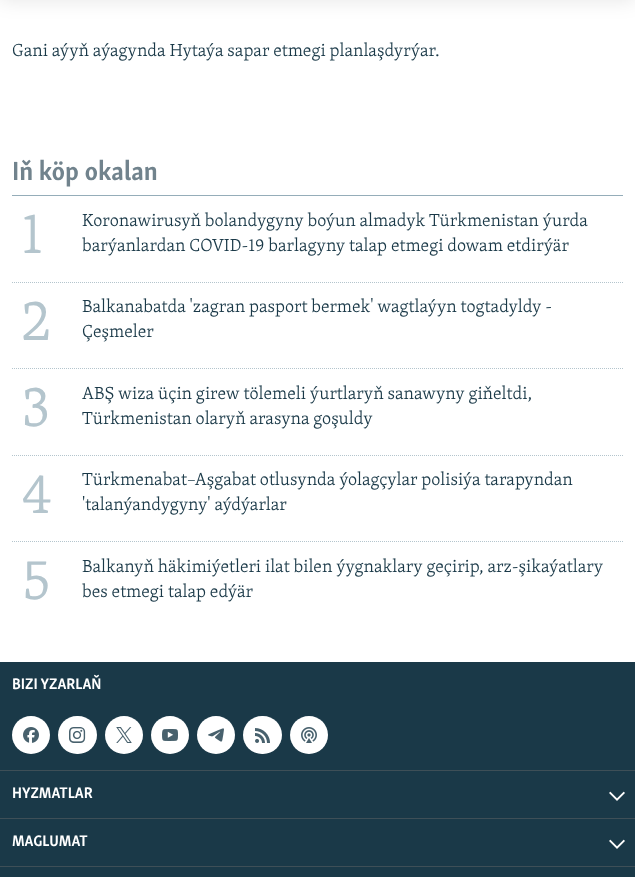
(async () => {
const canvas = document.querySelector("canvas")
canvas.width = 635
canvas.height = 877
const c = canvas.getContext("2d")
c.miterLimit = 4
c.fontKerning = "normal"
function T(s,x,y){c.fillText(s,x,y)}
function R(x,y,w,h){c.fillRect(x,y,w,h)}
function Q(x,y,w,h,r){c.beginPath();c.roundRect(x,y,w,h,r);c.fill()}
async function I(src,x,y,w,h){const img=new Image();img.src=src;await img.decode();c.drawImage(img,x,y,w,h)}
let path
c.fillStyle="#fff"
R(0,0,635,877)
c.fillStyle="#0000001a"
c.filter="blur(10px)"
c.beginPath()
c.rect(0,-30,635,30)
c.fill()
c.filter="none"
c.font="300 18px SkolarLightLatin"
c.fillStyle="#1a3948"
T("Gani aýyň aýagynda Hytaýa sapar etmegi planlaşdyrýar.",12,56)
c.fillStyle="#95adb9"
R(12,195,611,1)
c.font="bold 27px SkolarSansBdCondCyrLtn"
c.fillStyle="#71838d"
T("Iň köp okalan",12,180)
c.font="300 59px SkolarLightLatin"
c.fillStyle="#b4c5cd"
T("1",21,253)
c.font="300 18px SkolarLightLatin"
c.fillStyle="#1a3948"
T("Koronawirusyň bolandygyny boýun almadyk Türkmenistan ýurda",82,226)
T("barýanlardan COVID-19 barlagyny talap etmegi dowam etdirýär",82,251)
path = new Path2D("M12 282.5h611")
c.strokeStyle="#b4c5cd"
c.setLineDash([1,1])
c.stroke(path)
c.font="300 59px SkolarLightLatin"
c.fillStyle="#b4c5cd"
T("2",21,340)
c.font="300 18px SkolarLightLatin"
c.fillStyle="#1a3948"
T("Balkanabatda 'zagran pasport bermek' wagtlaýyn togtadyldy -",82,312)
T("Çeşmeler",82,337)
path = new Path2D("M12 368.5h611")
c.stroke(path)
c.font="300 59px SkolarLightLatin"
c.fillStyle="#b4c5cd"
T("3",21,426)
c.font="300 18px SkolarLightLatin"
c.fillStyle="#1a3948"
T("ABŞ wiza üçin girew tölemeli ýurtlaryň sanawyny giňeltdi,",82,399)
T("Türkmenistan olaryň arasyna goşuldy",82,424)
path = new Path2D("M12 455.5h611")
c.stroke(path)
c.font="300 59px SkolarLightLatin"
c.fillStyle="#b4c5cd"
T("4",21,513)
c.font="300 18px SkolarLightLatin"
c.fillStyle="#1a3948"
T("Türkmenabat–Aşgabat otlusynda ýolagçylar polisiýa tarapyndan",82,485)
T("'talanýandygyny' aýdýarlar",82,510)
path = new Path2D("M12 541.5h611")
c.stroke(path)
c.font="300 59px SkolarLightLatin"
c.fillStyle="#b4c5cd"
T("5",21,599)
c.font="300 18px SkolarLightLatin"
c.fillStyle="#1a3948"
T("Balkanyň häkimiýetleri ilat bilen ýygnaklary geçirip, arz-şikaýatlary",82,572)
T("bes etmegi talap edýär",82,597)
R(0,662,635,215)
c.fillStyle="#3e4f57"
R(0,866,635,1)
c.font="bold 15.75px SkolarSansBdCondCyrLtn"
c.fillStyle="#fff"
T("BIZI YZARLAŇ",12,689)
c.beginPath()
c.arc(31,735,19,0,7)
c.fill()
await I("1.png",23,727,16,16)
Q(58,716,39,38,19)
await I("2.png",69,727,17,16)
c.beginPath()
c.arc(124,735,19,0,7)
c.fill()
await I("3.png",116,727,16,16)
c.beginPath()
c.arc(170,735,19,0,7)
c.fill()
await I("4.png",162,729,16,12)
c.beginPath()
c.arc(216,735,19,0,7)
c.fill()
await I("5.png",208,728,16,14)
Q(243,716,39,38,19)
await I("6.png",255,728,15,15)
c.beginPath()
c.arc(309,735,19,0,7)
c.fill()
await I("7.png",301,727,16,16)
c.fillStyle="#3e4f57"
R(0,770,635,1)
c.fillStyle="#fff"
T("HYZMATLAR",12,798)
await I("8.png",609,791,16,10)
c.fillStyle="#3e4f57"
R(0,818,635,1)
c.fillStyle="#fff"
T("MAGLUMAT",12,846)
await I("8.png",609,839,16,10)
})()
